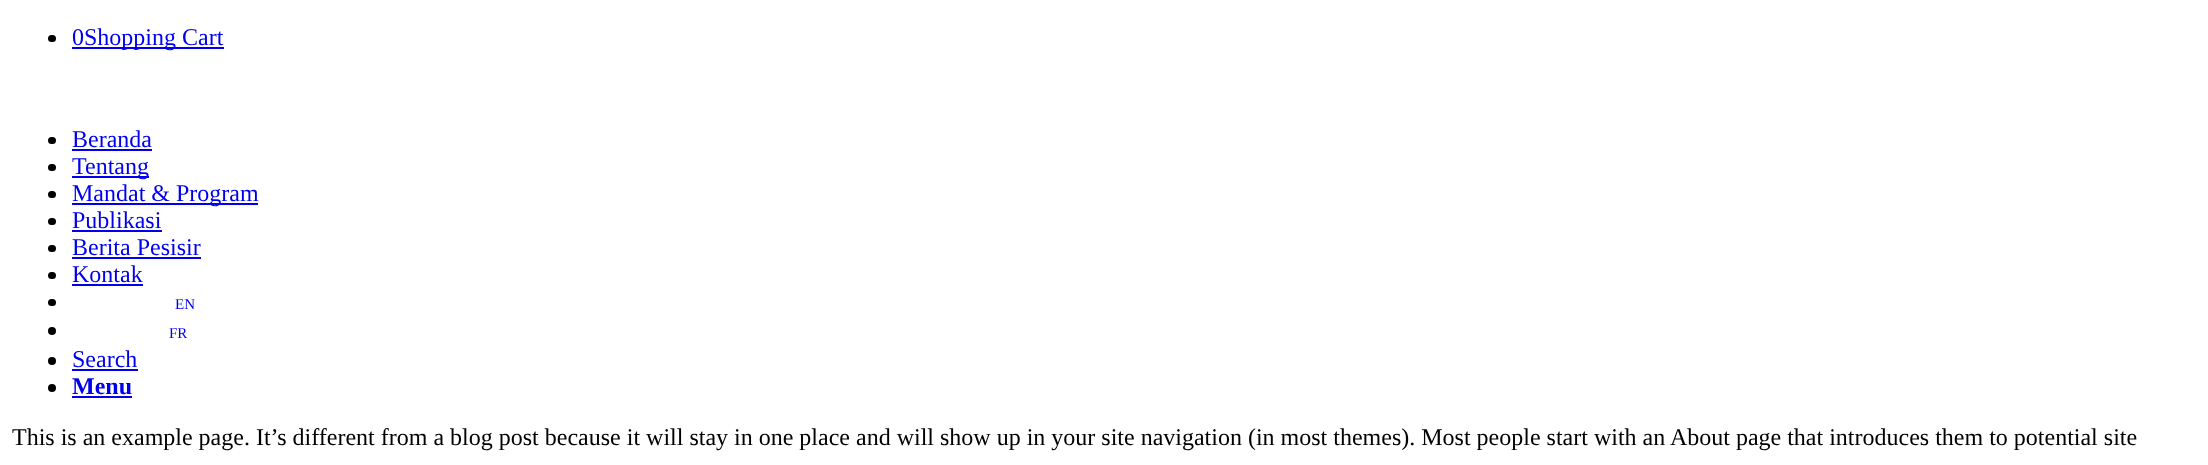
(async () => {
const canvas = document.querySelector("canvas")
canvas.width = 2208
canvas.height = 465
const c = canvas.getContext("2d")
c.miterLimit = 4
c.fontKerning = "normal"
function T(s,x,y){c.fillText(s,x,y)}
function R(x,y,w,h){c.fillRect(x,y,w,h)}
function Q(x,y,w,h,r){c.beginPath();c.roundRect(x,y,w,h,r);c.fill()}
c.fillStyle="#fff"
R(0,0,2208,465)
c.fillStyle="#000"
Q(48,35,8,7,3.5)
c.fillStyle="#00e"
R(72,47,152,2)
c.font="24px Liberation Serif"
T("0Shopping Cart",72,45)
c.fillStyle="#000"
Q(48,137,8,7,3.5)
c.fillStyle="#00e"
T("Beranda",72,147)
R(72,149,80,2)
c.fillStyle="#000"
Q(48,164,8,7,3.5)
c.fillStyle="#00e"
R(72,176,77,2)
T("Tentang",72,174)
c.fillStyle="#000"
Q(48,191,8,7,3.5)
c.fillStyle="#00e"
R(72,203,186,2)
T("Mandat & Program",72,201)
c.fillStyle="#000"
Q(48,218,8,7,3.5)
c.fillStyle="#00e"
T("Publikasi",72,228)
R(72,230,90,2)
c.fillStyle="#000"
Q(48,245,8,7,3.5)
c.fillStyle="#00e"
T("Berita Pesisir",72,255)
R(72,257,129,2)
c.fillStyle="#000"
Q(48,272,8,7,3.5)
c.fillStyle="#00e"
T("Kontak",72,282)
R(72,284,71,2)
c.fillStyle="#000"
Q(48,299,8,7,3.5)
c.font="15px Liberation Serif"
c.fillStyle="#00e"
T("EN",175,309)
c.fillStyle="#000"
c.beginPath()
c.arc(52,331,4,0,7)
c.fill()
c.fillStyle="#00e"
T("FR",169,338)
c.fillStyle="#000"
c.beginPath()
c.arc(52,361,4,0,7)
c.fill()
c.font="24px Liberation Serif"
c.fillStyle="#00e"
T("Search",72,367)
R(72,369,66,2)
c.fillStyle="#000"
c.beginPath()
c.arc(52,388,4,0,7)
c.fill()
c.font="bold 24px Liberation Serif"
c.fillStyle="#00e"
T("Menu",72,394)
R(72,396,60,2)
c.font="24px Liberation Serif"
c.fillStyle="#000"
T("This is an example page. It’s different from a blog post because it will stay in one place and will show up in your site navigation (in most themes). Most people start with an About page that introduces them to potential site",12,445)
})()
